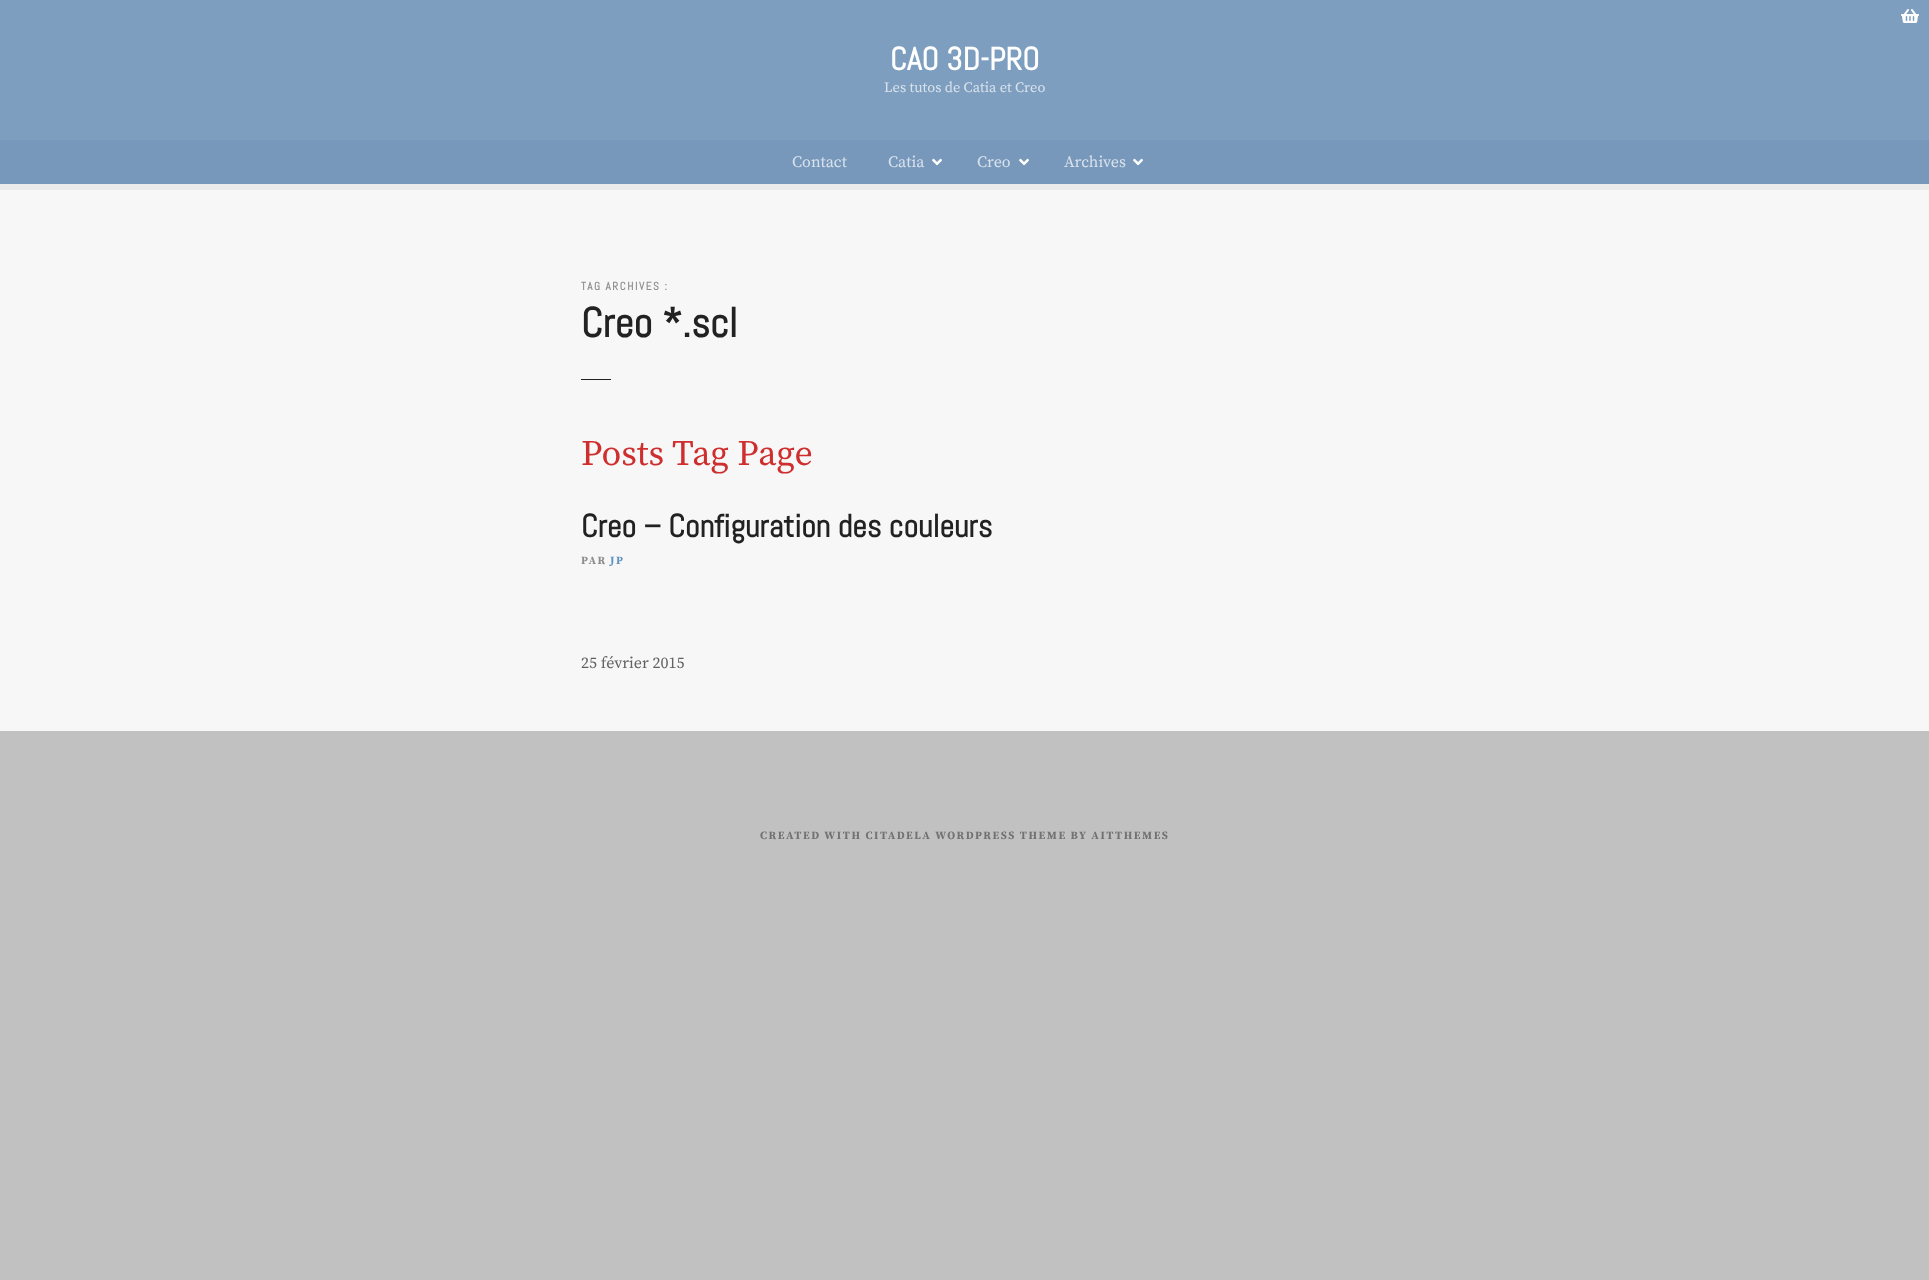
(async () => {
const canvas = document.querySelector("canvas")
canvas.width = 1929
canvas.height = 1280
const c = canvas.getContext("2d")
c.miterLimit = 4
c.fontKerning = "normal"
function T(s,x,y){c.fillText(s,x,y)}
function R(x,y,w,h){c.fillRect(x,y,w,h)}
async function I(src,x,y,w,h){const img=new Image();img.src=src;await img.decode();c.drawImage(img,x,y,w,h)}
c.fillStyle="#c1c1c1"
R(0,0,1929,1280)
c.fillStyle="#f7f7f7"
R(0,190,1929,541)
c.fillStyle="#7e9ebf"
R(0,0,1929,140)
c.font="bold 32px Abel"
c.fillStyle="#fff"
T("CAO 3D-PRO",890,70)
c.font="14.4px Source Serif Pro"
c.fillStyle="#d8e2ec"
T("Les tutos de Catia et Creo",884,92)
await I("1.png",1901,9,18,14)
c.fillStyle="#7798bb"
R(0,140,1929,44)
c.font="16px Source Serif Pro"
c.fillStyle="#d8e2ec"
T("Contact",792,167)
T("Catia",888,167)
await I("2.png",932,158,10,8)
T("Creo",977,167)
await I("2.png",1019,158,10,8)
T("Archives",1064,167)
await I("2.png",1133,158,10,8)
c.fillStyle="#ebebeb"
R(0,184,1929,6)
c.letterSpacing="1.57px"
c.font="bold 11.2px Abel"
c.fillStyle="#8d8d8d"
T("TAG ARCHIVES :",581,290)
c.letterSpacing="0px"
c.font="bold 41.5px Abel"
c.fillStyle="#222"
T("Creo *.scl",581,337)
R(581,379,30,1)
c.font="36px Source Serif Pro"
c.fillStyle="#cf2e2e"
T("Posts Tag Page",581,465)
c.font="bold 32px Abel"
c.fillStyle="#222"
T("Creo – Configuration des couleurs",581,537)
c.letterSpacing="1.57px"
c.font="bold 11.2px Source Serif Pro"
c.fillStyle="#8d8d8d"
T("PAR",581,564)
c.fillStyle="#6193bf"
T("JP",610,564)
c.letterSpacing="0px"
c.font="16px Source Serif Pro"
c.fillStyle="#626262"
T("25 février 2015",581,668)
c.letterSpacing="1.57px"
c.font="bold 11.2px Source Serif Pro"
c.fillStyle="#727272"
T("CREATED WITH CITADELA WORDPRESS THEME BY AITTHEMES",760,839)
})()
